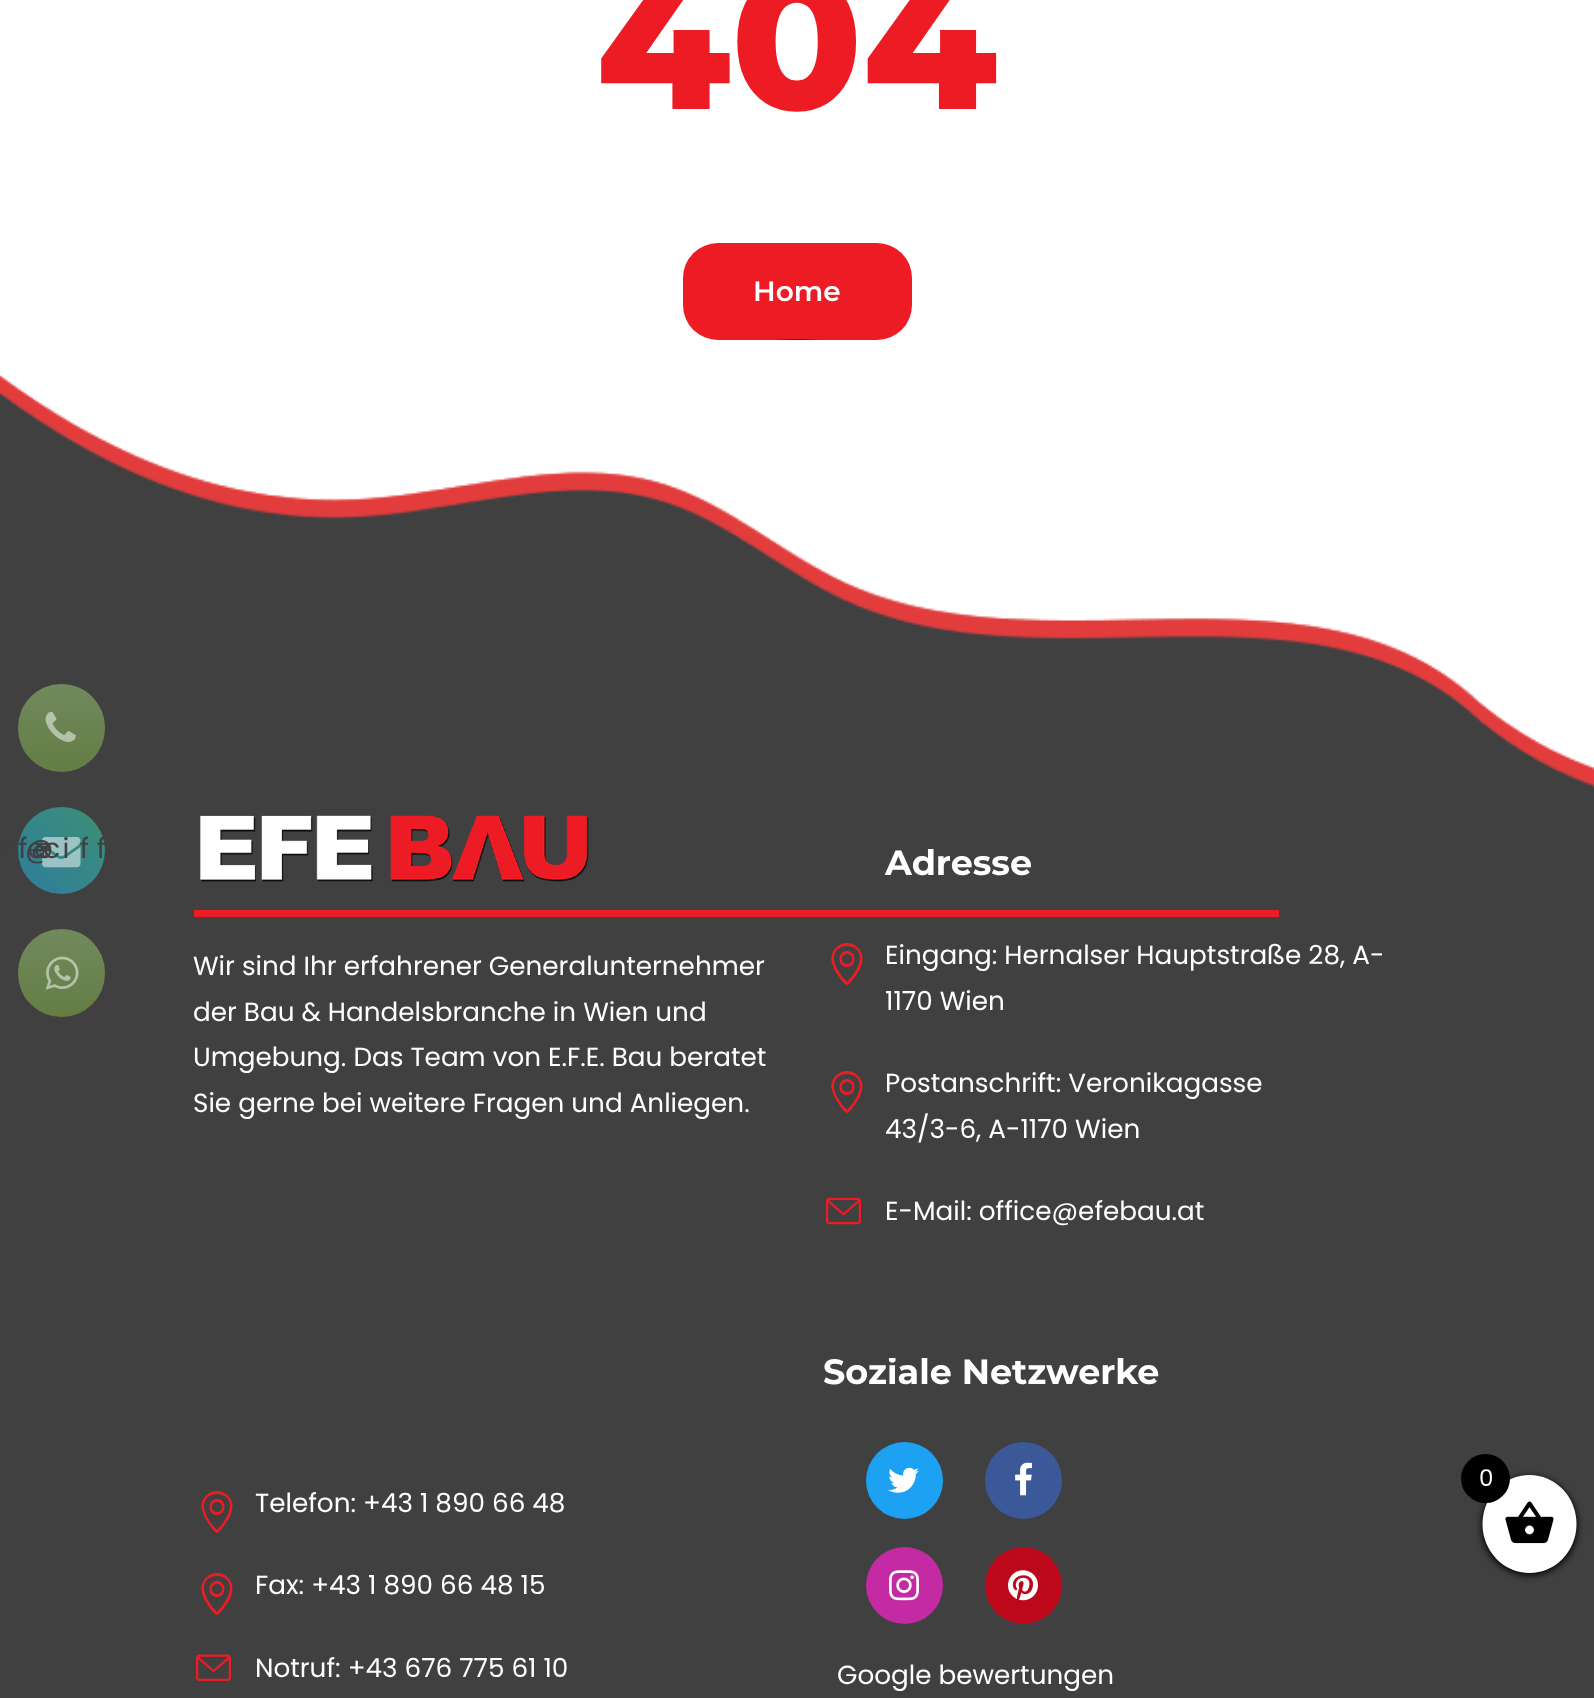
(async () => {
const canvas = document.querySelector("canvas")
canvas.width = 1594
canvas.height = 1698
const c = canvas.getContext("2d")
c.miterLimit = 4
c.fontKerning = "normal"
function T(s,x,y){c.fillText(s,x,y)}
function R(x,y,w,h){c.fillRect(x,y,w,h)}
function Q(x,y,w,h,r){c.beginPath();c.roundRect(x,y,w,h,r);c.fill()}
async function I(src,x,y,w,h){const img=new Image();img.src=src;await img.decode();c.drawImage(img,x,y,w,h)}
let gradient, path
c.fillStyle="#fff"
R(0,0,1594,1698)
c.font="800 192.5px Montserrat"
c.fillStyle="#ed1c24"
T("404",596,109)
Q(683,243,229,97,35)
c.font="600 28px Montserrat"
c.fillStyle="#fff"
T("Home",753,301)
c.fillStyle="#252628"
path = new Path2D("M797 339l24 1h-48z")
c.fill(path)
await I("4.png",0,375,1594,1323)
gradient = c.createLinearGradient(61,684,61,772)
gradient.addColorStop(0,"#72895d")
gradient.addColorStop(1,"#647d44")
c.fillStyle = gradient
Q(18,684,87,88,43.5)
await I("1.png",45,711,31,31)
gradient = c.createLinearGradient(18,894,105,807)
gradient.addColorStop(.08,"#2f7e99")
gradient.addColorStop(1,"#3d9076")
c.fillStyle = gradient
c.beginPath()
c.arc(61.5,850.5,43.5,0,7)
c.fill()
await I("2.png",42,837,39,31)
c.letterSpacing="-26.25px"
c.font="28px Poppins"
c.fillStyle="#404041"
T("office@efebau.at",105,858)
gradient = c.createLinearGradient(61,929,61,1017)
gradient.addColorStop(0,"#72895d")
gradient.addColorStop(1,"#647d44")
c.fillStyle = gradient
Q(18,929,87,88,43.5)
await I("3.png",45,956,34,34)
c.letterSpacing="0px"
c.font="bold 35px Montserrat"
c.fillStyle="#fff"
T("Adresse",885,875)
c.fillStyle="#ed1c24"
path = new Path2D("M847 943c-10 0-18 10-15 20l2 6c1 2 10 16 13 16c3 0 12-14 13-16l2-6c3-10-5-20-15-20zm0 39c-45-48 45-48 0 0zm0-31c-10 0-10 16 0 16c10 0 10-16 0-16zm0 13c-7 0-7-10 0-10c7 0 7 10 0 10z")
c.fill(path)
c.font="26.25px Poppins"
c.fillStyle="#fff"
T("Eingang: Hernalser Hauptstraße 28, A-",885,964)
T("1170 Wien",885,1010)
c.fillStyle="#ed1c24"
path = new Path2D("M847 1071c-10 0-18 10-15 19l2 6c1 2 10 17 13 17c3 0 12-15 13-16l2-7c3-9-5-19-15-19zm0 39c-45-48 45-48 0 0zm0-31c-10 0-10 16 0 16c10 0 10-16 0-16zm0 13c-7 0-7-10 0-10c7 0 7 10 0 10z")
c.fill(path)
c.fillStyle="#fff"
T("Postanschrift: Veronikagasse",885,1092)
T("43/3-6, A-1170 Wien",885,1138)
await I("5.png",826,1197,35,28)
T("E-Mail: office@efebau.at",885,1220)
c.fillStyle="#ed1c24"
R(194,910,1085,7)
await I("6.png",200,815,389,67)
c.fillStyle="#fff"
T("Wir sind Ihr erfahrener Generalunternehmer",193,975)
T("der Bau & Handelsbranche in Wien und",193,1021)
T("Umgebung. Das Team von E.F.E. Bau beratet",193,1066)
T("Sie gerne bei weitere Fragen und Anliegen.",193,1112)
c.fillStyle="#ed1c24"
path = new Path2D("M217 1491c-10 0-18 10-15 19l2 6c1 2 10 17 13 17c3 0 12-15 13-16l2-7c3-9-5-19-15-19zm0 39c-45-48 45-48 0 0zm0-31c-10 0-10 16 0 16c10 0 10-16 0-16zm0 13c-7 0-7-10 0-10c7 0 7 10 0 10z")
c.fill(path)
c.fillStyle="#fff"
T("Telefon: +43 1 890 66 48",255,1512)
c.fillStyle="#ed1c24"
path = new Path2D("M217 1573c-10 0-18 10-15 20l2 6c1 2 10 16 13 16c3 0 12-14 13-16l2-6c3-10-5-20-15-20zm0 39c-45-48 45-48 0 0zm0-31c-10 0-10 16 0 16c10 0 10-16 0-16zm0 13c-7 0-7-10 0-10c7 0 7 10 0 10z")
c.fill(path)
c.fillStyle="#fff"
T("Fax: +43 1 890 66 48 15",255,1594)
await I("7.png",196,1654,35,27)
T("Notruf: +43 676 775 61 10",255,1677)
c.save()
c.beginPath()
c.rect(824,1358,578,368)
c.clip()
c.font="bold 35px Montserrat"
T("Soziale Netzwerke",823,1384)
c.restore()
c.fillStyle="#1da1f2"
c.beginPath()
c.arc(904.5,1480.5,38.5,0,7)
c.fill()
await I("8.png",888,1467,31,26)
c.fillStyle="#3b5998"
c.beginPath()
c.arc(1023.5,1480.5,38.5,0,7)
c.fill()
await I("9.png",1015,1462,17,34)
c.fillStyle="#c32aa3"
c.beginPath()
c.arc(904.5,1585.5,38.5,0,7)
c.fill()
await I("10.png",889,1570,30,31)
c.fillStyle="#bd081c"
c.beginPath()
c.arc(1023.5,1585.5,38.5,0,7)
c.fill()
await I("11.png",1008,1570,30,31)
c.fillStyle="#fff"
T("Google bewertungen",837,1684)
c.fillStyle="#000"
c.filter="blur(3.5px)"
c.beginPath()
c.roundRect(1482,1477,95,98,47.5)
c.fill()
c.filter="none"
c.fillStyle="#fff"
c.beginPath()
c.ellipse(1529.5,1524,47,49,0,0,7)
c.fill()
c.fillStyle="#000"
c.beginPath()
c.arc(1485.5,1478.5,24.5,0,7)
c.fill()
c.font="23px Poppins"
c.fillStyle="#fff"
T("0",1479,1486)
await I("12.png",1505,1501,49,43)
})()
